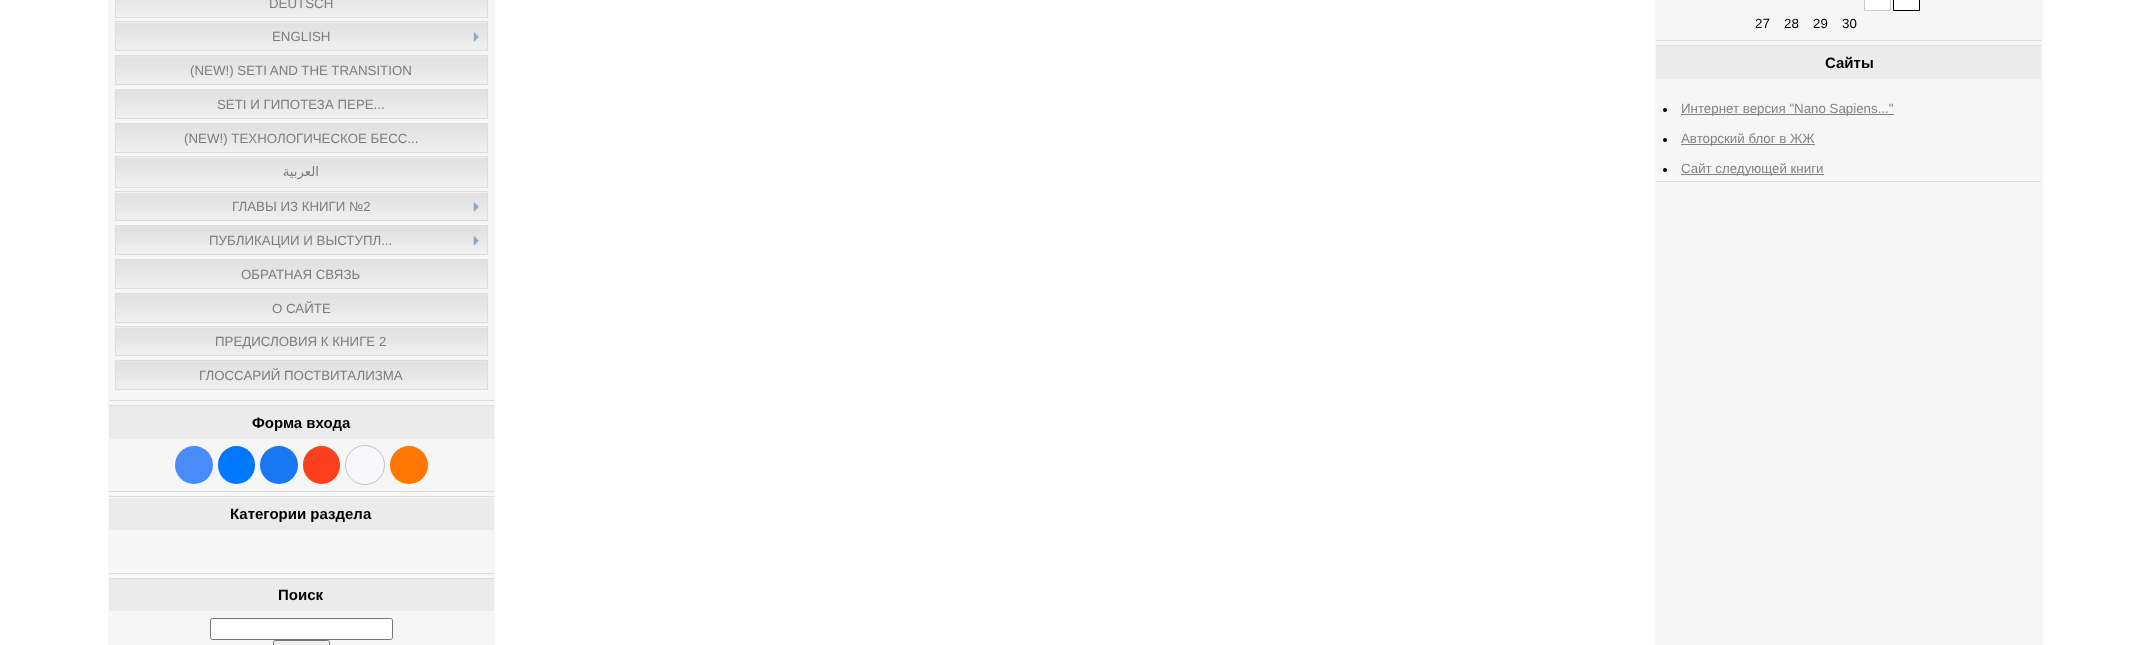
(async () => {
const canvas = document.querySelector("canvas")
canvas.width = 2150
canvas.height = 645
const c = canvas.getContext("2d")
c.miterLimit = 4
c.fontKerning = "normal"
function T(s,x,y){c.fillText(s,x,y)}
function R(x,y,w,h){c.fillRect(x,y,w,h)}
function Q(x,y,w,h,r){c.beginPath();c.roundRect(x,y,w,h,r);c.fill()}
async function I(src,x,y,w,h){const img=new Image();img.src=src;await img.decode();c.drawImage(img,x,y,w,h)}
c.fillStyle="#fff"
R(0,0,2150,645)
c.fillStyle="#f6f6f6"
R(108,0,387,645)
c.fillStyle="#ddd"
R(109,400,385,1)
await I("1.png",116,0,371,17)
c.strokeStyle="#ddd"
c.strokeRect(115.5,-.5,372,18)
c.font="13.3px Liberation Sans"
c.fillStyle="#7d7d7d"
T("DEUTSCH",269,8)
c.fillStyle="#fff"
R(116,22,371,1)
await I("2.png",116,22,371,28)
c.strokeRect(115.5,21.5,372,29)
c.fillStyle="#7d7d7d"
T("ENGLISH",272,41)
await I("3.png",473,32,6,10)
await I("4.png",116,56,371,28)
c.strokeRect(115.5,55.5,372,29)
T("(NEW!) SETI AND THE TRANSITION",190,75)
await I("5.png",116,90,371,28)
c.strokeRect(115.5,89.5,372,29)
T("SETI И ГИПОТЕЗА ПЕРЕ...",217,109)
await I("6.png",116,124,371,28)
c.strokeRect(115.5,123.5,372,29)
T("(NEW!) ТЕХНОЛОГИЧЕСКОЕ БЕСС...",184,143)
c.fillStyle="#fff"
R(116,157,371,1)
await I("7.png",116,157,371,30)
c.strokeRect(115.5,156.5,372,31)
c.direction="rtl"
c.font="13.3px DejaVu Sans"
c.fillStyle="#7d7d7d"
T("العربية",319,176)
c.fillStyle="#fff"
R(116,192,371,1)
await I("2.png",116,192,371,28)
c.strokeRect(115.5,191.5,372,29)
c.direction="ltr"
c.font="13.3px Liberation Sans"
c.fillStyle="#7d7d7d"
T("ГЛАВЫ ИЗ КНИГИ №2",232,211)
await I("3.png",473,202,6,10)
await I("4.png",116,226,371,28)
c.strokeRect(115.5,225.5,372,29)
T("ПУБЛИКАЦИИ И ВЫСТУПЛ...",209,245)
await I("8.png",473,236,6,9)
await I("5.png",116,260,371,28)
c.strokeRect(115.5,259.5,372,29)
T("ОБРАТНАЯ СВЯЗЬ",241,279)
await I("6.png",116,294,371,28)
c.strokeRect(115.5,293.5,372,29)
T("О САЙТЕ",272,313)
c.fillStyle="#fff"
R(116,327,371,1)
await I("2.png",116,327,371,28)
c.strokeRect(115.5,326.5,372,29)
c.fillStyle="#7d7d7d"
T("ПРЕДИСЛОВИЯ К КНИГЕ 2",215,346)
await I("4.png",116,361,371,28)
c.strokeRect(115.5,360.5,372,29)
T("ГЛОССАРИЙ ПОСТВИТАЛИЗМА",199,380)
c.fillStyle="#ddd"
R(109,405,385,1)
R(109,491,385,1)
c.fillStyle="#ebebeb"
R(109,406,385,33)
c.font="bold 15px Liberation Sans"
c.fillStyle="#000"
T("Форма входа",252,428)
c.fillStyle="#498bfa"
c.beginPath()
c.arc(194,465,19,0,7)
c.fill()
c.fillStyle="#07f"
Q(218,446,37,38,18.5)
c.fillStyle="#1877f2"
c.beginPath()
c.arc(279,465,19,0,7)
c.fill()
c.fillStyle="#fc3f1d"
Q(303,446,37,38,18.5)
c.fillStyle="#f8f8fc"
c.beginPath()
c.arc(365,465,19.5,0,7)
c.fill()
c.strokeStyle="#c4c4c4"
c.stroke()
c.fillStyle="#f70"
c.beginPath()
c.arc(409,465,19,0,7)
c.fill()
c.fillStyle="#ddd"
R(109,496,385,1)
R(109,573,385,1)
c.fillStyle="#ebebeb"
R(109,498,385,32)
c.fillStyle="#000"
T("Категории раздела",230,519)
c.fillStyle="#ddd"
R(109,578,385,1)
c.fillStyle="#ebebeb"
R(109,579,385,32)
c.fillStyle="#000"
T("Поиск",278,600)
c.fillStyle="#fff"
c.beginPath()
c.roundRect(210.5,618.5,182,21,2)
c.fill()
c.strokeStyle="#767676"
c.stroke()
c.fillStyle="#efefef"
c.beginPath()
c.roundRect(273.5,640.5,56,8,2)
c.fill()
c.stroke()
c.fillStyle="#f6f6f6"
R(1655,0,388,645)
c.fillStyle="#ddd"
R(1656,40,385,1)
c.fillStyle="#fff"
c.beginPath()
c.rect(1864.5,-.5,26,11)
c.fill()
c.strokeStyle="#ccc"
c.stroke()
c.beginPath()
c.rect(1893.5,-.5,26,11)
c.fill()
c.strokeStyle="#000"
c.stroke()
c.font="13.3px Liberation Sans"
c.fillStyle="#000"
T("27",1755,28)
T("28",1784,28)
T("29",1813,28)
T("30",1842,28)
c.fillStyle="#ddd"
R(1656,45,385,1)
R(1656,181,385,1)
c.fillStyle="#ebebeb"
R(1656,46,385,33)
c.font="bold 15px Liberation Sans"
c.fillStyle="#000"
T("Сайты",1825,68)
c.beginPath()
c.arc(1665,110,2,0,7)
c.fill()
c.fillStyle="#838383"
R(1681,114,213,1)
c.font="13.3px Liberation Sans"
T("Интернет версия \"Nano Sapiens...\"",1681,113)
c.fillStyle="#000"
c.beginPath()
c.arc(1665,140,2,0,7)
c.fill()
c.fillStyle="#838383"
R(1681,144,134,1)
T("Авторский блог в ЖЖ",1681,143)
c.fillStyle="#000"
c.beginPath()
c.arc(1665,170,2,0,7)
c.fill()
c.fillStyle="#838383"
R(1681,174,143,1)
T("Сайт следующей книги",1681,173)
})()
